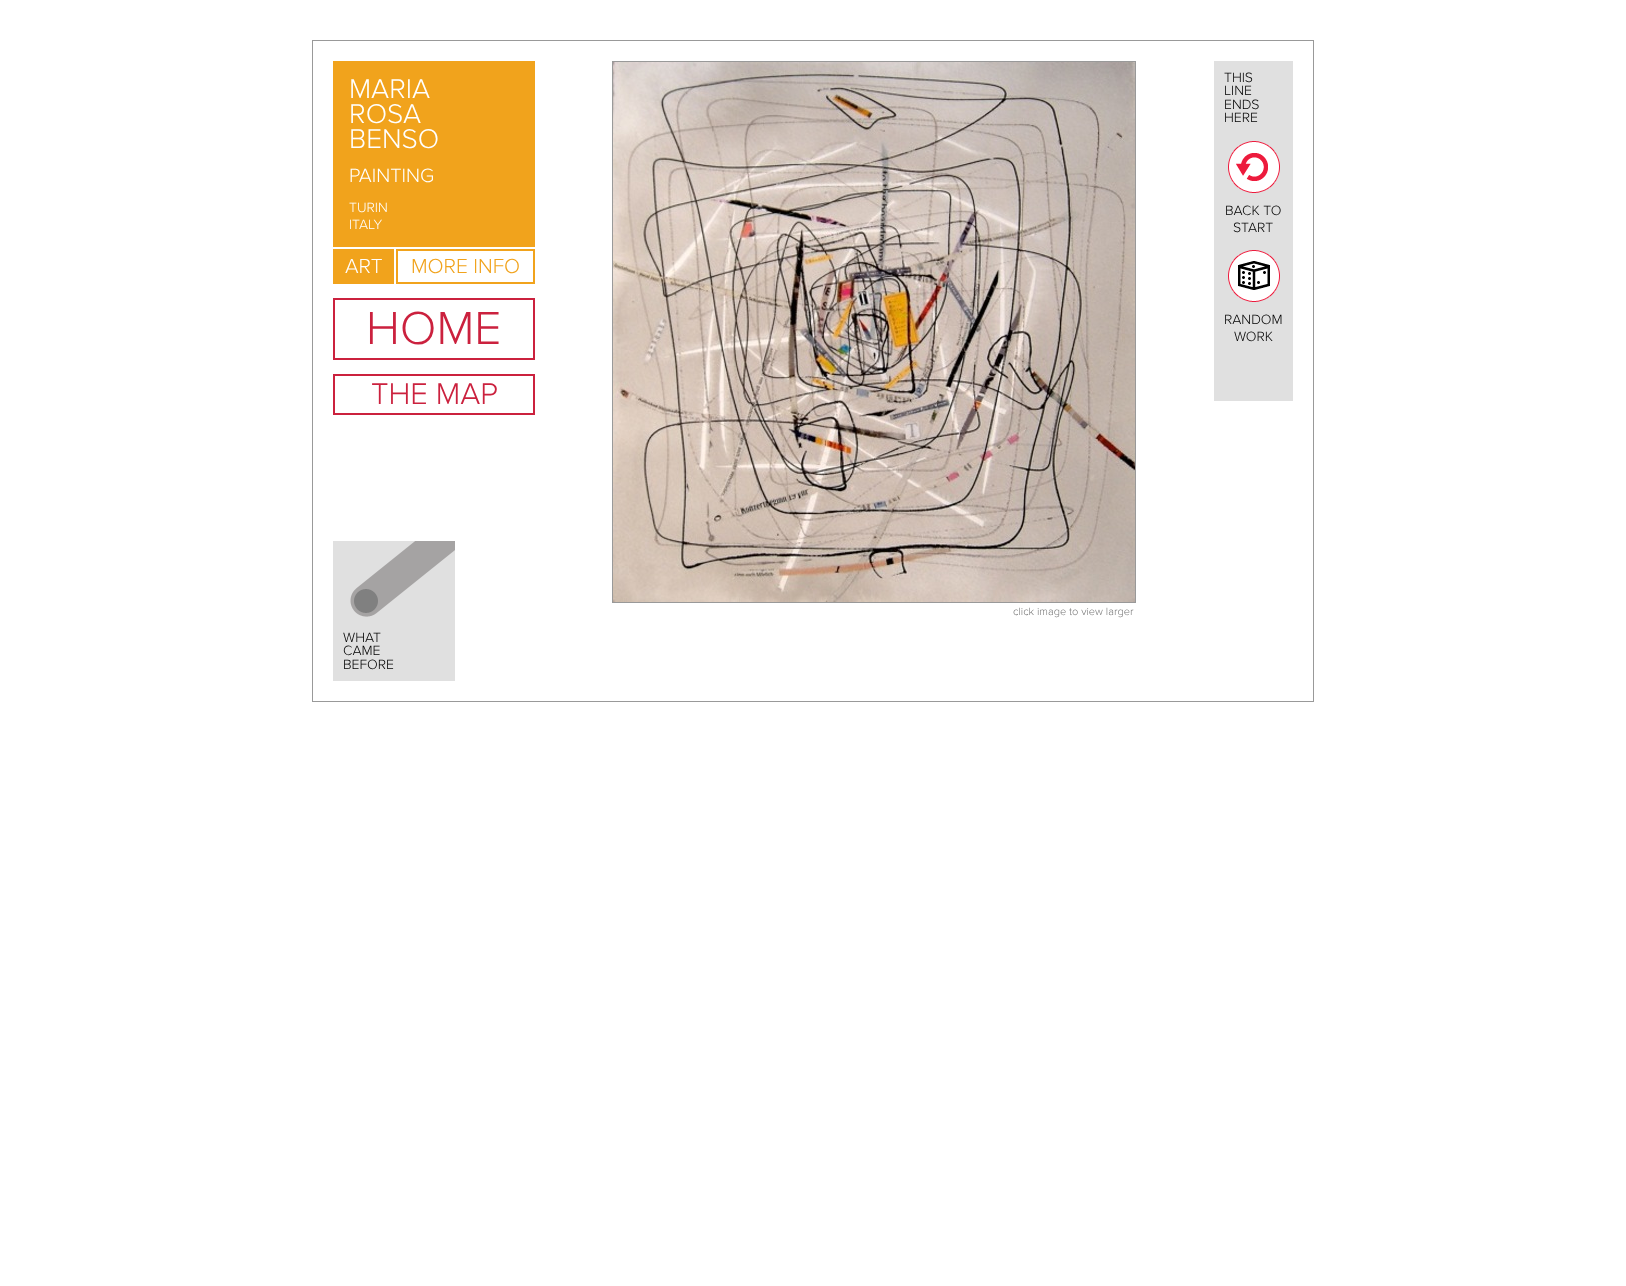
(async () => {
const canvas = document.querySelector("canvas")
canvas.width = 1626
canvas.height = 1286
const c = canvas.getContext("2d")
c.miterLimit = 4
c.fontKerning = "normal"
function T(s,x,y){c.fillText(s,x,y)}
function R(x,y,w,h){c.fillRect(x,y,w,h)}
async function I(src,x,y,w,h){const img=new Image();img.src=src;await img.decode();c.drawImage(img,x,y,w,h)}
c.fillStyle="#fff"
R(0,0,1626,1286)
c.strokeStyle="#999"
c.strokeRect(312.5,40.5,1001,661)
c.fillStyle="#f1a31c"
R(333,61,202,186)
c.font="300 28px Proxima Nova"
c.fillStyle="#fff"
T("MARIA",349,98)
T("ROSA",349,123)
T("BENSO",349,148)
c.font="300 20px Proxima Nova"
T("PAINTING",349,182)
c.font="300 14px Proxima Nova"
T("TURIN",349,212)
T("ITALY",349,229)
c.fillStyle="#f1a31c"
R(333,249,61,35)
c.font="300 21px Proxima Nova"
c.fillStyle="#fff"
T("ART",345,273)
c.strokeStyle="#f1a31c"
c.lineWidth=2
c.strokeRect(397,250,137,33)
c.fillStyle="#f1a31c"
T("MORE INFO",411,273)
c.strokeStyle="#cb213e"
c.strokeRect(334,299,200,60)
c.font="300 48px Proxima Nova"
c.fillStyle="#cb213e"
T("HOME",366,344)
c.strokeRect(334,375,200,39)
c.font="300 31px Proxima Nova"
T("THE MAP",371,404)
c.fillStyle="#e0e0e0"
R(1214,61,79,340)
c.font="300 14px Proxima Nova"
c.fillStyle="#000"
T("THIS",1224,82)
T("LINE",1224,95)
T("ENDS",1224,109)
T("HERE",1224,122)
await I("1.png",1228,141,52,52)
T("BACK TO",1225,215)
T("START",1233,232)
await I("2.png",1228,250,52,52)
T("RANDOM",1224,324)
T("WORK",1234,341)
c.strokeStyle="#999"
c.lineWidth=1
c.strokeRect(612.5,61.5,523,541)
await I("3.png",613,62,522,540)
c.font="300 11px Proxima Nova"
c.fillStyle="#777"
T("click image to view larger",1013,615)
c.fillStyle="#e0e0e0"
R(333,541,122,140)
await I("4.png",350,541,105,76)
c.font="300 14px Proxima Nova"
c.fillStyle="#000"
T("WHAT",343,642)
T("CAME",343,655)
T("BEFORE",343,669)
})()
